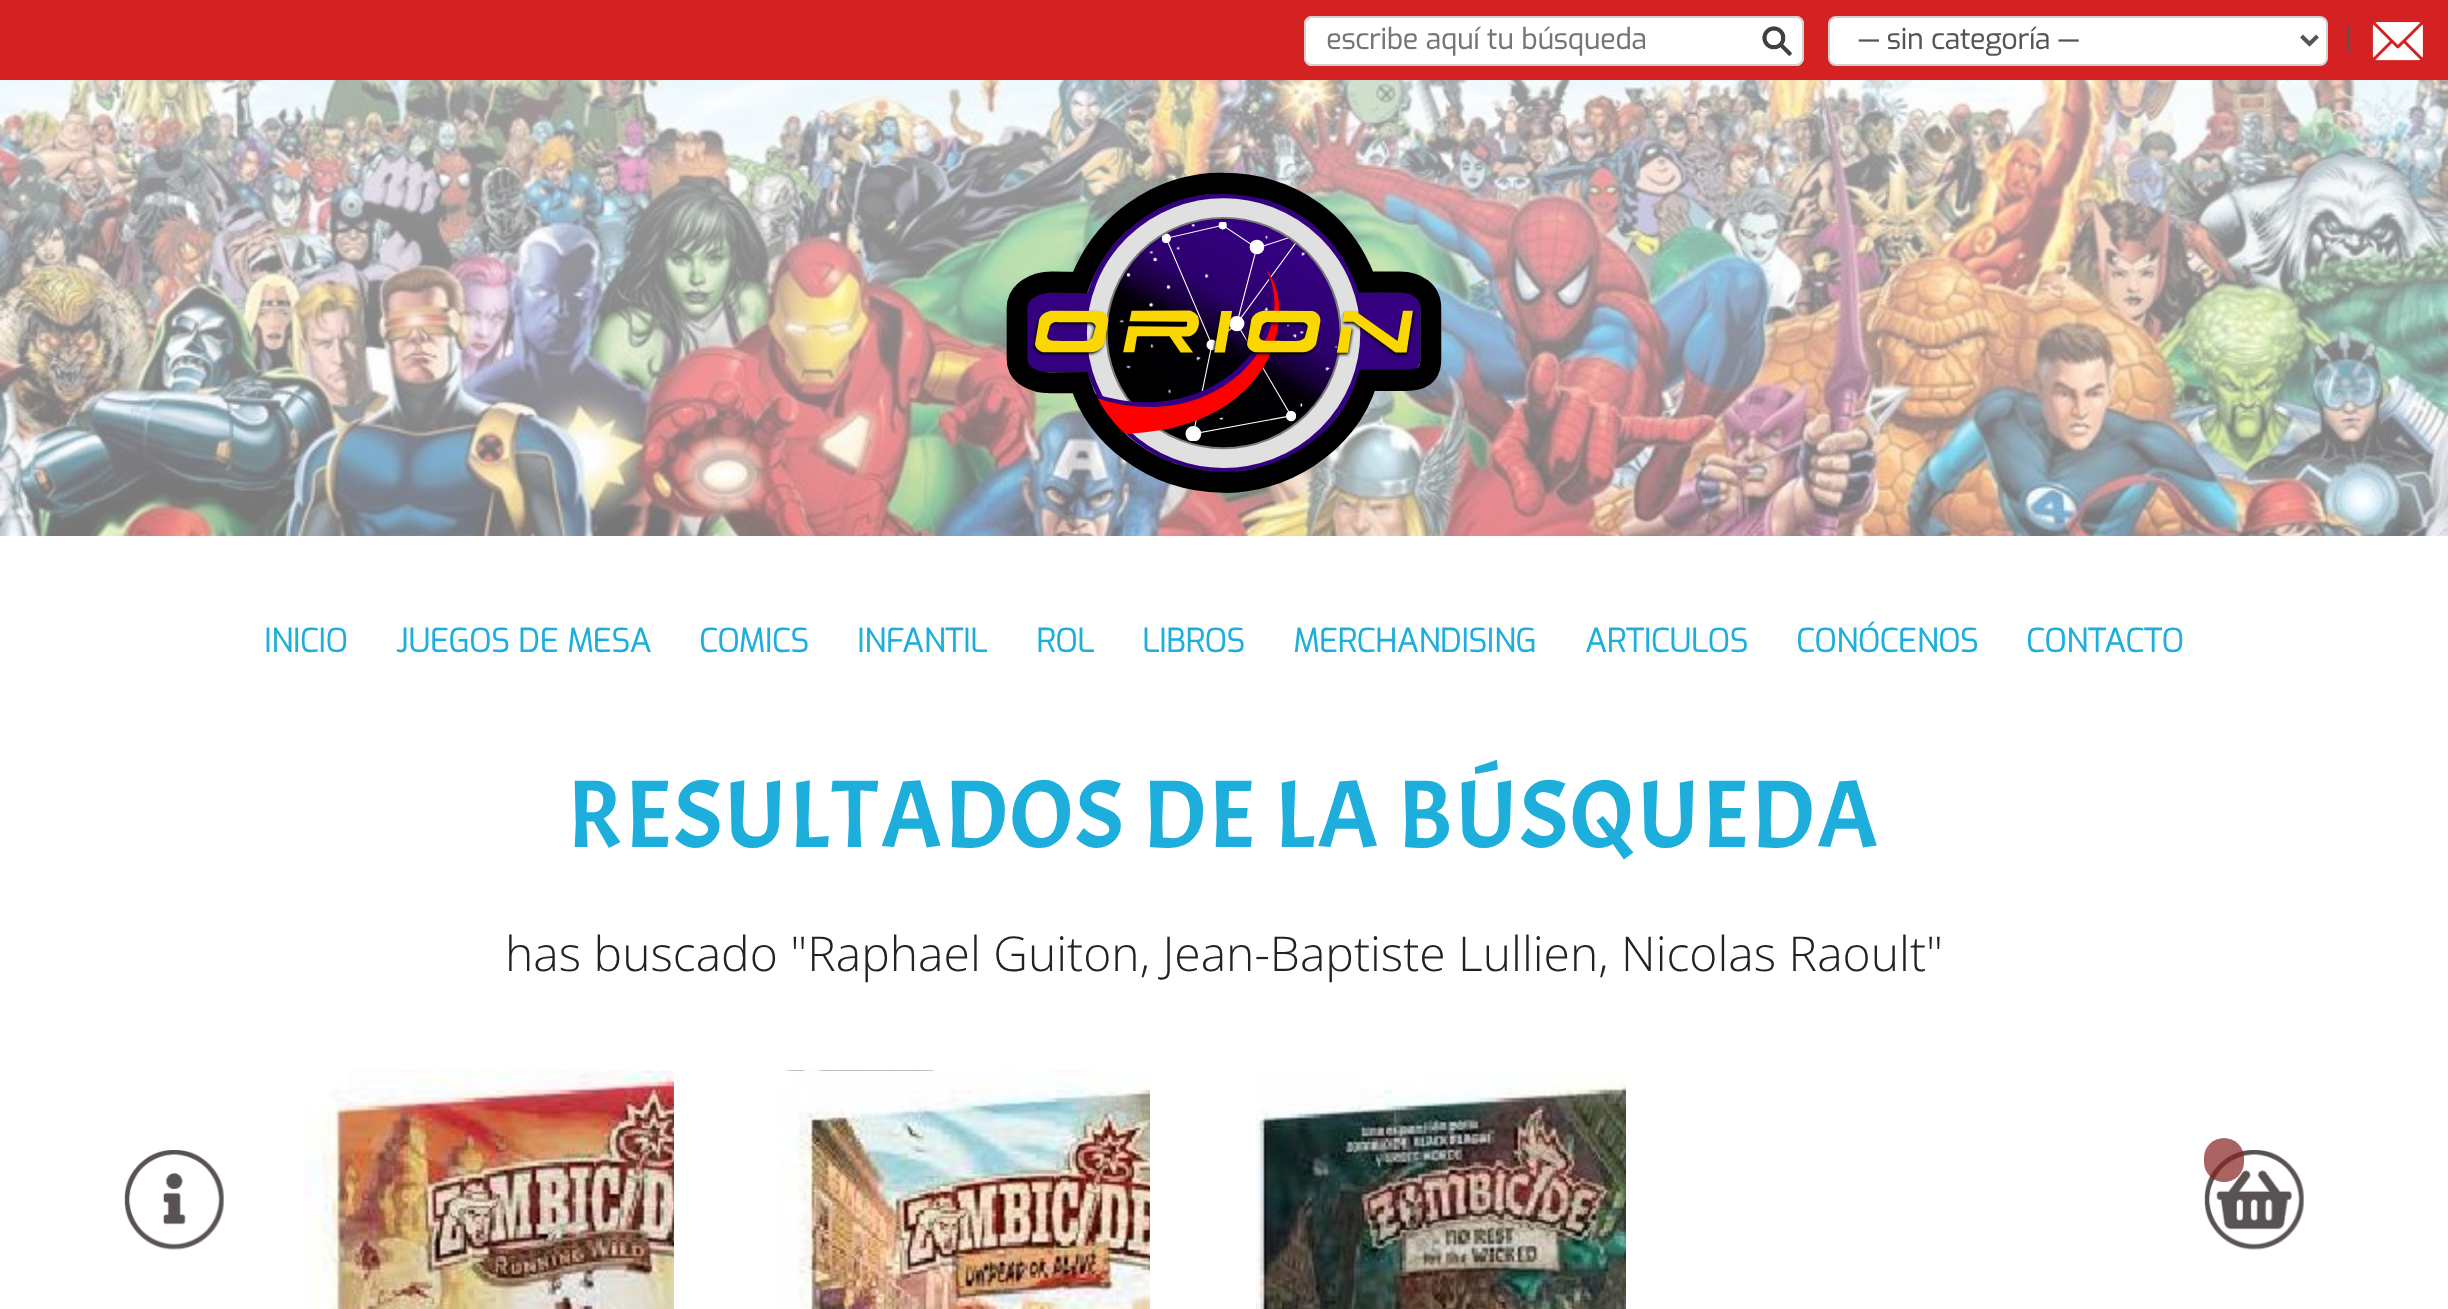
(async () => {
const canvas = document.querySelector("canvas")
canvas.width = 2448
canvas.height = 1309
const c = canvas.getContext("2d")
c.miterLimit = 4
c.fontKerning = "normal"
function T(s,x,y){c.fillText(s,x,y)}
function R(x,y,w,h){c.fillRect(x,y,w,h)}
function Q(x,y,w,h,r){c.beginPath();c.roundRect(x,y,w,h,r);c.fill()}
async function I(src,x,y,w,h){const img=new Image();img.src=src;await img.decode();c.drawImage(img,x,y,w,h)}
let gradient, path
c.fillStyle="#fff"
R(0,0,2448,1309)
await I("1.png",0,80,2448,456)
c.fillStyle="#d42222"
R(0,0,2448,80)
c.fillStyle="#fff"
Q(1304,16,500,50,8)
await I("2.png",1762,26,30,30)
c.beginPath()
c.roundRect(1305,17,498,48,7)
c.strokeStyle="#d1d1d1"
c.lineWidth=2
c.stroke()
c.font="bold 28px Exo"
c.fillStyle="#757575"
T("escribe aquí tu búsqueda",1326,49)
c.fillStyle="#fff"
c.beginPath()
c.roundRect(1829,17,498,48,7)
c.fill()
c.stroke()
path = new Path2D("M2301.5 36l8 8l8-8")
c.strokeStyle="#555"
c.lineWidth=4
c.stroke(path)
c.fillStyle="#555"
T("— sin categoría —",1858,49)
c.font="bold 30px Exo"
T("|",2344,50)
await I("3.png",2372,22,51,39)
gradient = c.createLinearGradient(1224,80,1224,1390)
gradient.addColorStop(0,"#ffffff99")
gradient.addColorStop(1,"#ffffff33")
c.fillStyle = gradient
R(0,80,2448,456)
await I("4.png",1006,172,436,321)
c.font="bold 32px Exo"
c.fillStyle="#1eaedb"
T("INICIO",264,652)
T("JUEGOS DE MESA",396,652)
T("COMICS",699,652)
T("INFANTIL",857,652)
T("ROL",1036,652)
T("LIBROS",1142,652)
T("MERCHANDISING",1293,652)
T("ARTICULOS",1585,652)
T("CONÓCENOS",1796,652)
T("CONTACTO",2026,652)
c.letterSpacing="2px"
c.font="96px Acme"
T("RESULTADOS DE LA BÚSQUEDA",567,847)
c.letterSpacing="0px"
c.font="300 48px Open Sans"
c.fillStyle="#222"
T("has buscado \"Raphael Guiton, Jean-Baptiste Lullien, Nicolas Raoult\"",505,971)
await I("5.png",304,1070,370,239)
await I("6.png",780,1070,370,239)
await I("7.png",1256,1070,370,239)
await I("8.png",124,1150,100,100)
await I("9.png",2204,1150,100,100)
c.fillStyle="#862121b3"
Q(2204,1138,40,44,20)
})()
